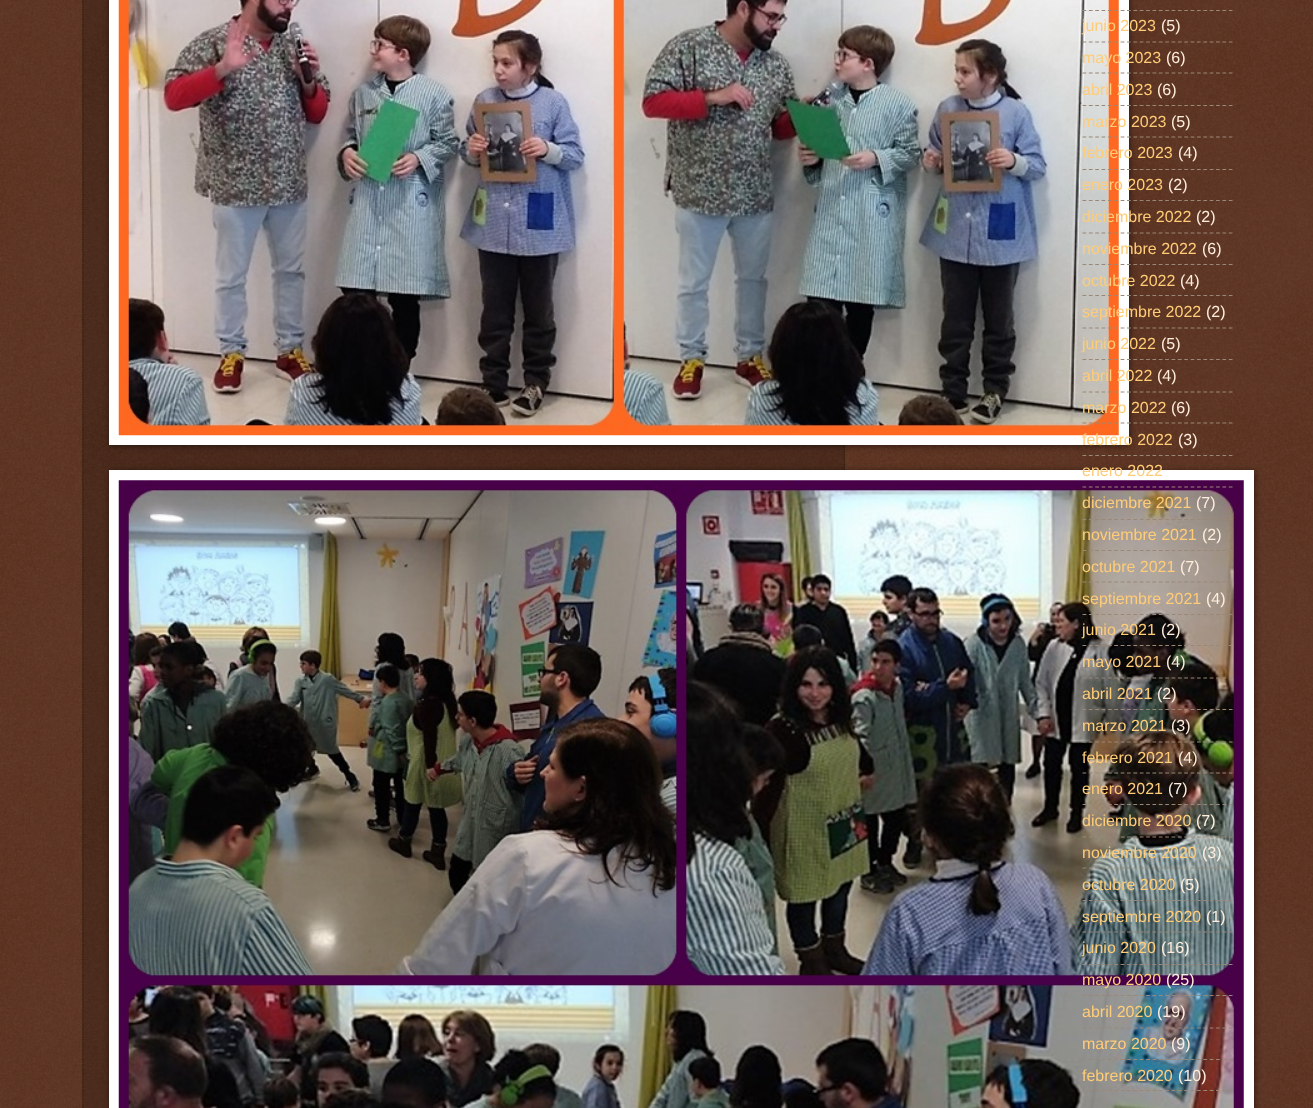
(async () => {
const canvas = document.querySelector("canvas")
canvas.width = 1313
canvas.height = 1108
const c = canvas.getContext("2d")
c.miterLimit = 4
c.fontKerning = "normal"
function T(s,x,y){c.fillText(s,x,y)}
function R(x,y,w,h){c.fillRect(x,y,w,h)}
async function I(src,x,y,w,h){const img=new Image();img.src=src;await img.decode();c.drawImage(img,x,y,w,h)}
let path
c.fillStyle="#441500"
R(0,0,1313,1108)
await I("1.png",0,0,1313,1108)
c.fillStyle="#00000033"
R(82,0,763,1108)
path = new Path2D("M844.5-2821v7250")
c.strokeStyle="#321"
c.lineWidth=1.2
c.setLineDash([1.25,1.25])
c.stroke(path)
path = new Path2D("M83-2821v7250")
c.stroke(path)
c.fillStyle="#00000080"
c.filter="blur(3px)"
c.beginPath()
c.rect(110,-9,1020,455)
c.fill()
c.filter="none"
c.fillStyle="#fff"
R(109,0,1020,445)
await I("2.png",118,0,1001,436)
c.fillStyle="#00000080"
c.filter="blur(3px)"
c.beginPath()
c.rect(110,471,1145,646)
c.fill()
c.filter="none"
c.fillStyle="#fff"
R(109,470,1145,638)
await I("3.png",118,480,1126,628)
path = new Path2D("M1082.5 10.5h150")
c.strokeStyle="#987"
c.setLineDash([3.75,2.61])
c.stroke(path)
c.font="16px Liberation Sans"
c.fillStyle="#fc7"
T("junio 2023",1082,31)
c.fillStyle="#fed"
T("(5)",1161,31)
path = new Path2D("M1082.5 42h150")
c.stroke(path)
c.fillStyle="#fc7"
T("mayo 2023",1082,63)
c.fillStyle="#fed"
T("(6)",1166,63)
path = new Path2D("M1082.5 73h150")
c.stroke(path)
c.fillStyle="#fc7"
T("abril 2023",1082,95)
c.fillStyle="#fed"
T("(6)",1157,95)
path = new Path2D("M1082.5 105.5h150")
c.stroke(path)
c.fillStyle="#fc7"
T("marzo 2023",1082,127)
c.fillStyle="#fed"
T("(5)",1171,127)
path = new Path2D("M1082.5 137h150")
c.stroke(path)
c.fillStyle="#fc7"
T("febrero 2023",1082,158)
c.fillStyle="#fed"
T("(4)",1178,158)
path = new Path2D("M1082.5 169.5h150")
c.stroke(path)
c.fillStyle="#fc7"
T("enero 2023",1082,190)
c.fillStyle="#fed"
T("(2)",1168,190)
path = new Path2D("M1082.5 200.5h150")
c.stroke(path)
c.fillStyle="#fc7"
T("diciembre 2022",1082,222)
c.fillStyle="#fed"
T("(2)",1196,222)
path = new Path2D("M1082.5 233h150")
c.stroke(path)
c.fillStyle="#fc7"
T("noviembre 2022",1082,254)
c.fillStyle="#fed"
T("(6)",1202,254)
path = new Path2D("M1082.5 264.5h150")
c.stroke(path)
c.fillStyle="#fc7"
T("octubre 2022",1082,286)
c.fillStyle="#fed"
T("(4)",1180,286)
path = new Path2D("M1082.5 295.5h150")
c.stroke(path)
c.fillStyle="#fc7"
T("septiembre 2022",1082,317)
c.fillStyle="#fed"
T("(2)",1206,317)
path = new Path2D("M1082.5 328h150")
c.stroke(path)
c.fillStyle="#fc7"
T("junio 2022",1082,349)
c.fillStyle="#fed"
T("(5)",1161,349)
path = new Path2D("M1082.5 359.5h150")
c.stroke(path)
c.fillStyle="#fc7"
T("abril 2022",1082,381)
c.fillStyle="#fed"
T("(4)",1157,381)
path = new Path2D("M1082.5 392h150")
c.stroke(path)
c.fillStyle="#fc7"
T("marzo 2022",1082,413)
c.fillStyle="#fed"
T("(6)",1171,413)
path = new Path2D("M1082.5 423h150")
c.stroke(path)
c.fillStyle="#fc7"
T("febrero 2022",1082,445)
c.fillStyle="#fed"
T("(3)",1178,445)
path = new Path2D("M1082.5 455.5h150")
c.stroke(path)
c.fillStyle="#fc7"
T("enero 2022",1082,476)
path = new Path2D("M1082.5 487h150")
c.stroke(path)
T("diciembre 2021",1082,508)
c.fillStyle="#fed"
T("(7)",1196,508)
path = new Path2D("M1082.5 519.5h150")
c.stroke(path)
c.fillStyle="#fc7"
T("noviembre 2021",1082,540)
c.fillStyle="#fed"
T("(2)",1202,540)
path = new Path2D("M1082.5 550.5h150")
c.stroke(path)
c.fillStyle="#fc7"
T("octubre 2021",1082,572)
c.fillStyle="#fed"
T("(7)",1180,572)
path = new Path2D("M1082.5 582h150")
c.stroke(path)
c.fillStyle="#fc7"
T("septiembre 2021",1082,604)
c.fillStyle="#fed"
T("(4)",1206,604)
path = new Path2D("M1082.5 614.5h150")
c.stroke(path)
c.fillStyle="#fc7"
T("junio 2021",1082,635)
c.fillStyle="#fed"
T("(2)",1161,635)
path = new Path2D("M1082.5 645.5h150")
c.stroke(path)
c.fillStyle="#fc7"
T("mayo 2021",1082,667)
c.fillStyle="#fed"
T("(4)",1166,667)
path = new Path2D("M1082.5 678h150")
c.stroke(path)
c.fillStyle="#fc7"
T("abril 2021",1082,699)
c.fillStyle="#fed"
T("(2)",1157,699)
path = new Path2D("M1082.5 709.5h150")
c.stroke(path)
c.fillStyle="#fc7"
T("marzo 2021",1082,731)
c.fillStyle="#fed"
T("(3)",1171,731)
path = new Path2D("M1082.5 742h150")
c.stroke(path)
c.fillStyle="#fc7"
T("febrero 2021",1082,763)
c.fillStyle="#fed"
T("(4)",1178,763)
path = new Path2D("M1082.5 773h150")
c.stroke(path)
c.fillStyle="#fc7"
T("enero 2021",1082,794)
c.fillStyle="#fed"
T("(7)",1168,794)
path = new Path2D("M1082.5 804.5h150")
c.stroke(path)
c.fillStyle="#fc7"
T("diciembre 2020",1082,826)
c.fillStyle="#fed"
T("(7)",1196,826)
path = new Path2D("M1082.5 837h150")
c.stroke(path)
c.fillStyle="#fc7"
T("noviembre 2020",1082,858)
c.fillStyle="#fed"
T("(3)",1202,858)
path = new Path2D("M1082.5 868h150")
c.stroke(path)
c.fillStyle="#fc7"
T("octubre 2020",1082,890)
c.fillStyle="#fed"
T("(5)",1180,890)
path = new Path2D("M1082.5 900.5h150")
c.stroke(path)
c.fillStyle="#fc7"
T("septiembre 2020",1082,922)
c.fillStyle="#fed"
T("(1)",1206,922)
path = new Path2D("M1082.5 932h150")
c.stroke(path)
c.fillStyle="#fc7"
T("junio 2020",1082,953)
c.fillStyle="#fed"
T("(16)",1161,953)
path = new Path2D("M1082.5 964.5h150")
c.stroke(path)
c.fillStyle="#fc7"
T("mayo 2020",1082,985)
c.fillStyle="#fed"
T("(25)",1166,985)
path = new Path2D("M1082.5 995.5h150")
c.stroke(path)
c.fillStyle="#fc7"
T("abril 2020",1082,1017)
c.fillStyle="#fed"
T("(19)",1157,1017)
path = new Path2D("M1082.5 1028h150")
c.stroke(path)
c.fillStyle="#fc7"
T("marzo 2020",1082,1049)
c.fillStyle="#fed"
T("(9)",1171,1049)
path = new Path2D("M1082.5 1059.5h150")
c.stroke(path)
c.fillStyle="#fc7"
T("febrero 2020",1082,1081)
c.fillStyle="#fed"
T("(10)",1178,1081)
path = new Path2D("M1082.5 1090.5h150")
c.stroke(path)
})()
